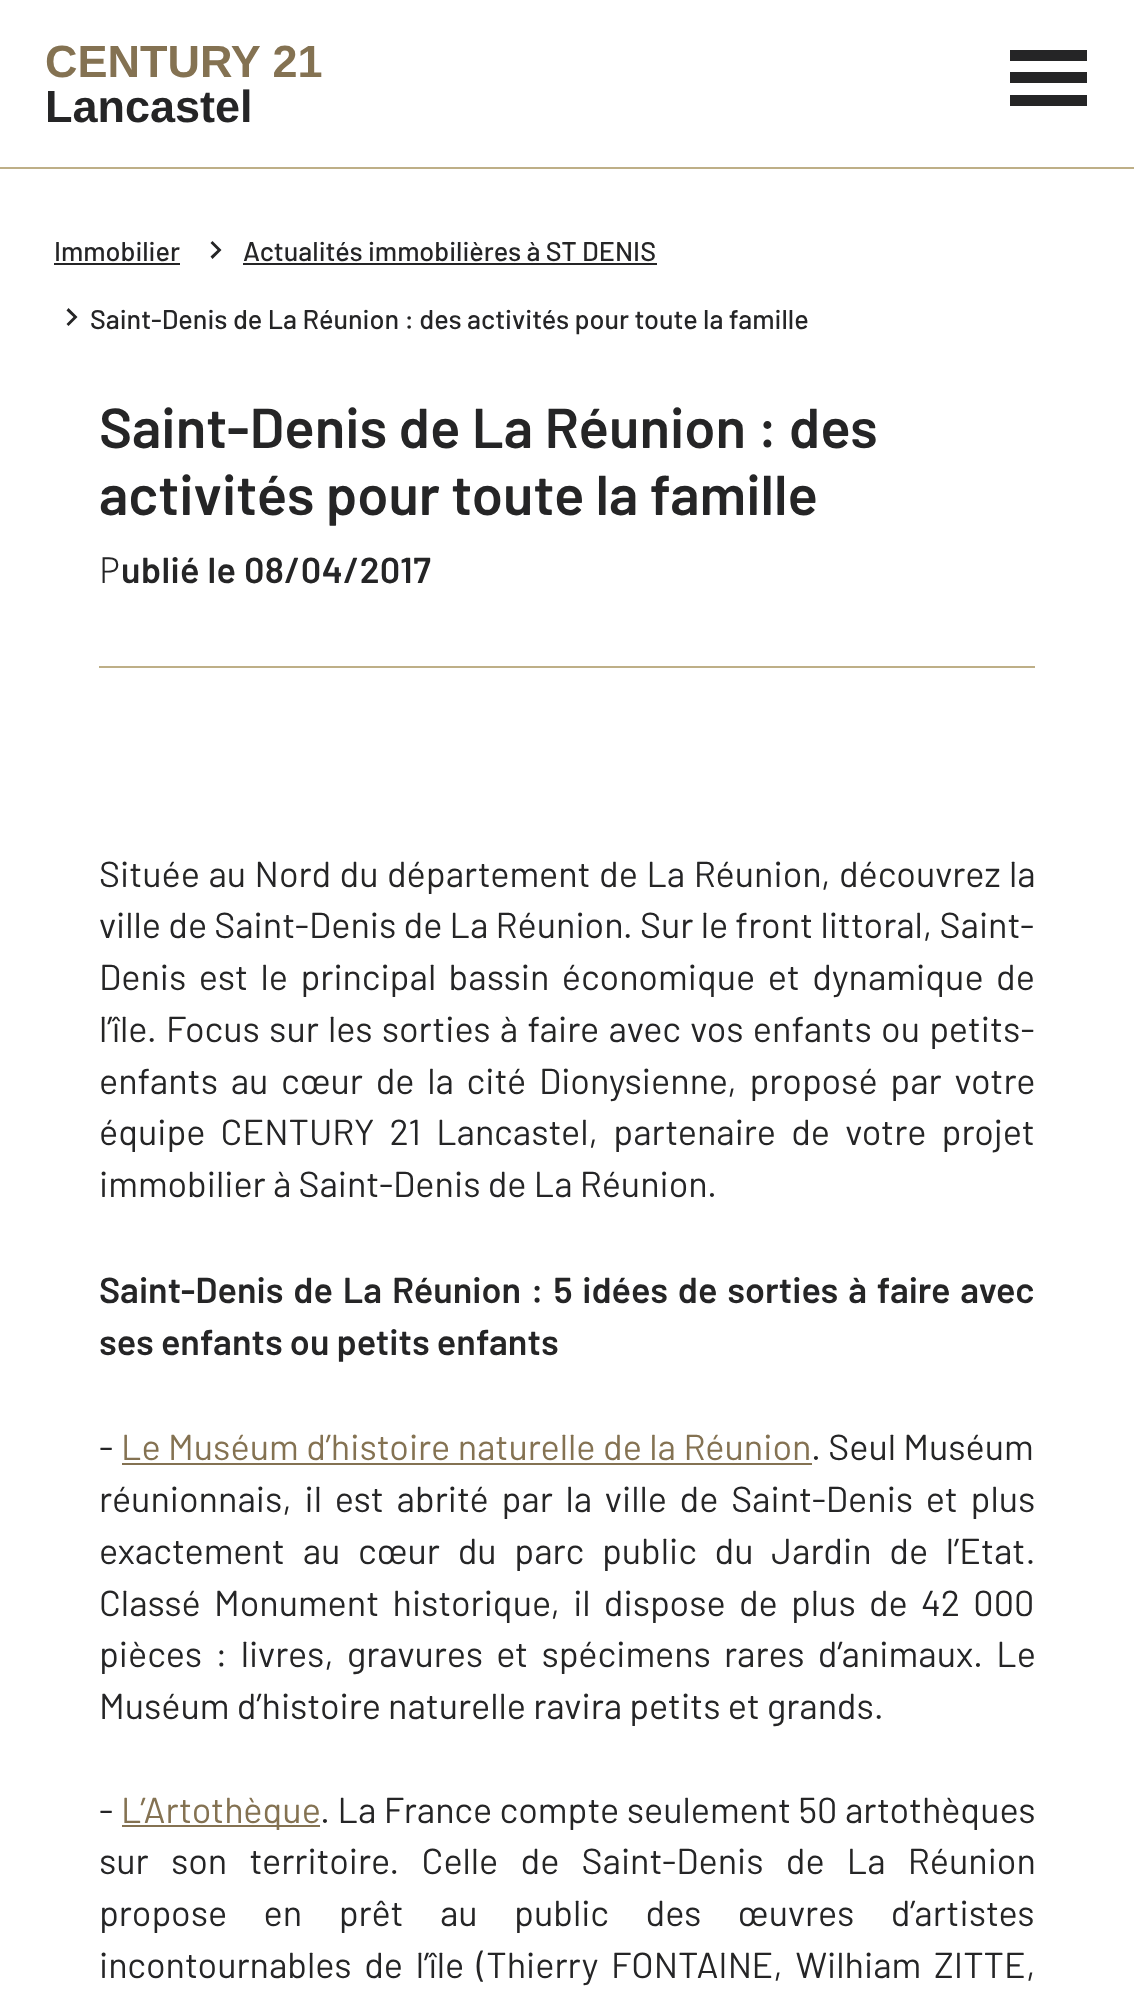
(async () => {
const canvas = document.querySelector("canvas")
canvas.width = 1134
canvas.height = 2008
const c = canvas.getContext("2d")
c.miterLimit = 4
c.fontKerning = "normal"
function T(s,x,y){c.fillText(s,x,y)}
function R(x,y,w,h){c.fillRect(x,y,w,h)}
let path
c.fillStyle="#fff"
R(0,0,1134,2008)
c.fillStyle="#beaf87"
R(0,167,1134,2)
c.font="bold 45px Liberation Sans"
c.fillStyle="#847252"
T("CENTURY 21",45,77)
c.fillStyle="#252526"
T("Lancastel",45,122)
R(1010,95,77,11)
R(1010,50,77,11)
R(1010,72,77,11)
c.font="500 27px Barlow"
T("Immobilier",54,261)
R(54,263,126,2)
path = new Path2D("M212.5 259l9-9l-9-9l-2 2l7 7l-7 6.5z")
c.fill(path)
T("Actualités immobilières à ST DENIS",243,261)
R(243,263,414,2)
path = new Path2D("M68.5 326l9-9l-9-9l-2 2.5l7 6.5l-7 7z")
c.fill(path)
T("Saint-Denis de La Réunion : des activités pour toute la famille",90,329)
c.font="600 56.25px Barlow"
T("Saint-Denis de La Réunion : des",99,448)
T("activités pour toute la famille",99,515)
c.letterSpacing="0.4px"
c.font="300 36px Noto Sans"
T("P",99,583)
c.font="600 36px Barlow"
T("ublié le 08/04/2017",121,583)
c.fillStyle="#beaf87"
R(99,666,936,2)
c.letterSpacing="0px"
c.wordSpacing="1.25px"
c.font="36px Barlow"
c.fillStyle="#252526"
T("Située au Nord du département de La Réunion, découvrez la",99,887)
c.wordSpacing="0px"
T("ville de Saint-Denis de La Réunion. Sur le front littoral, Saint-",99,938)
c.wordSpacing="5.25px"
T("Denis est le principal bassin économique et dynamique de",99,990)
c.wordSpacing="2px"
T("l’île. Focus sur les sorties à faire avec vos enfants ou petits-",99,1042)
c.wordSpacing="5.5px"
T("enfants au cœur de la cité Dionysienne, proposé par votre",99,1094)
c.wordSpacing="8px"
T("équipe CENTURY 21 Lancastel, partenaire de votre projet",99,1145)
c.wordSpacing="0px"
T("immobilier à Saint-Denis de La Réunion.",99,1197)
c.wordSpacing="2.6px"
c.font="600 36px Barlow"
T("Saint-Denis de La Réunion : 5 idées de sorties à faire avec",99,1303)
c.wordSpacing="0px"
T("ses enfants ou petits enfants",99,1355)
c.font="36px Barlow"
T("-",99,1460)
c.wordSpacing="0.25px"
c.fillStyle="#847252"
T("Le Muséum d’histoire naturelle de la Réunion",121,1460)
R(122,1463,690,2)
c.wordSpacing="0px"
c.fillStyle="#252526"
T(". Seul Muséum",811,1460)
c.wordSpacing="5.5px"
T("réunionnais, il est abrité par la ville de Saint-Denis et plus",99,1512)
c.wordSpacing="10.5px"
T("exactement au cœur du parc public du Jardin de l’Etat.",99,1564)
c.wordSpacing="6px"
T("Classé Monument historique, il dispose de plus de 42 000",99,1616)
T("pièces : livres, gravures et spécimens rares d’animaux. Le",99,1667)
c.wordSpacing="0px"
T("Muséum d’histoire naturelle ravira petits et grands.",99,1719)
T("-",99,1823)
c.fillStyle="#847252"
R(122,1825,198,2)
T("L’Artothèque",121,1823)
c.wordSpacing="0.25px"
c.fillStyle="#252526"
T(". La France compte seulement 50 artothèques",320,1823)
c.wordSpacing="15px"
T("sur son territoire. Celle de Saint-Denis de La Réunion",99,1874)
c.wordSpacing="29.25px"
T("propose en prêt au public des œuvres d’artistes",99,1926)
c.wordSpacing="5.5px"
T("incontournables de l’île (Thierry FONTAINE, Wilhiam ZITTE,",99,1978)
})()
